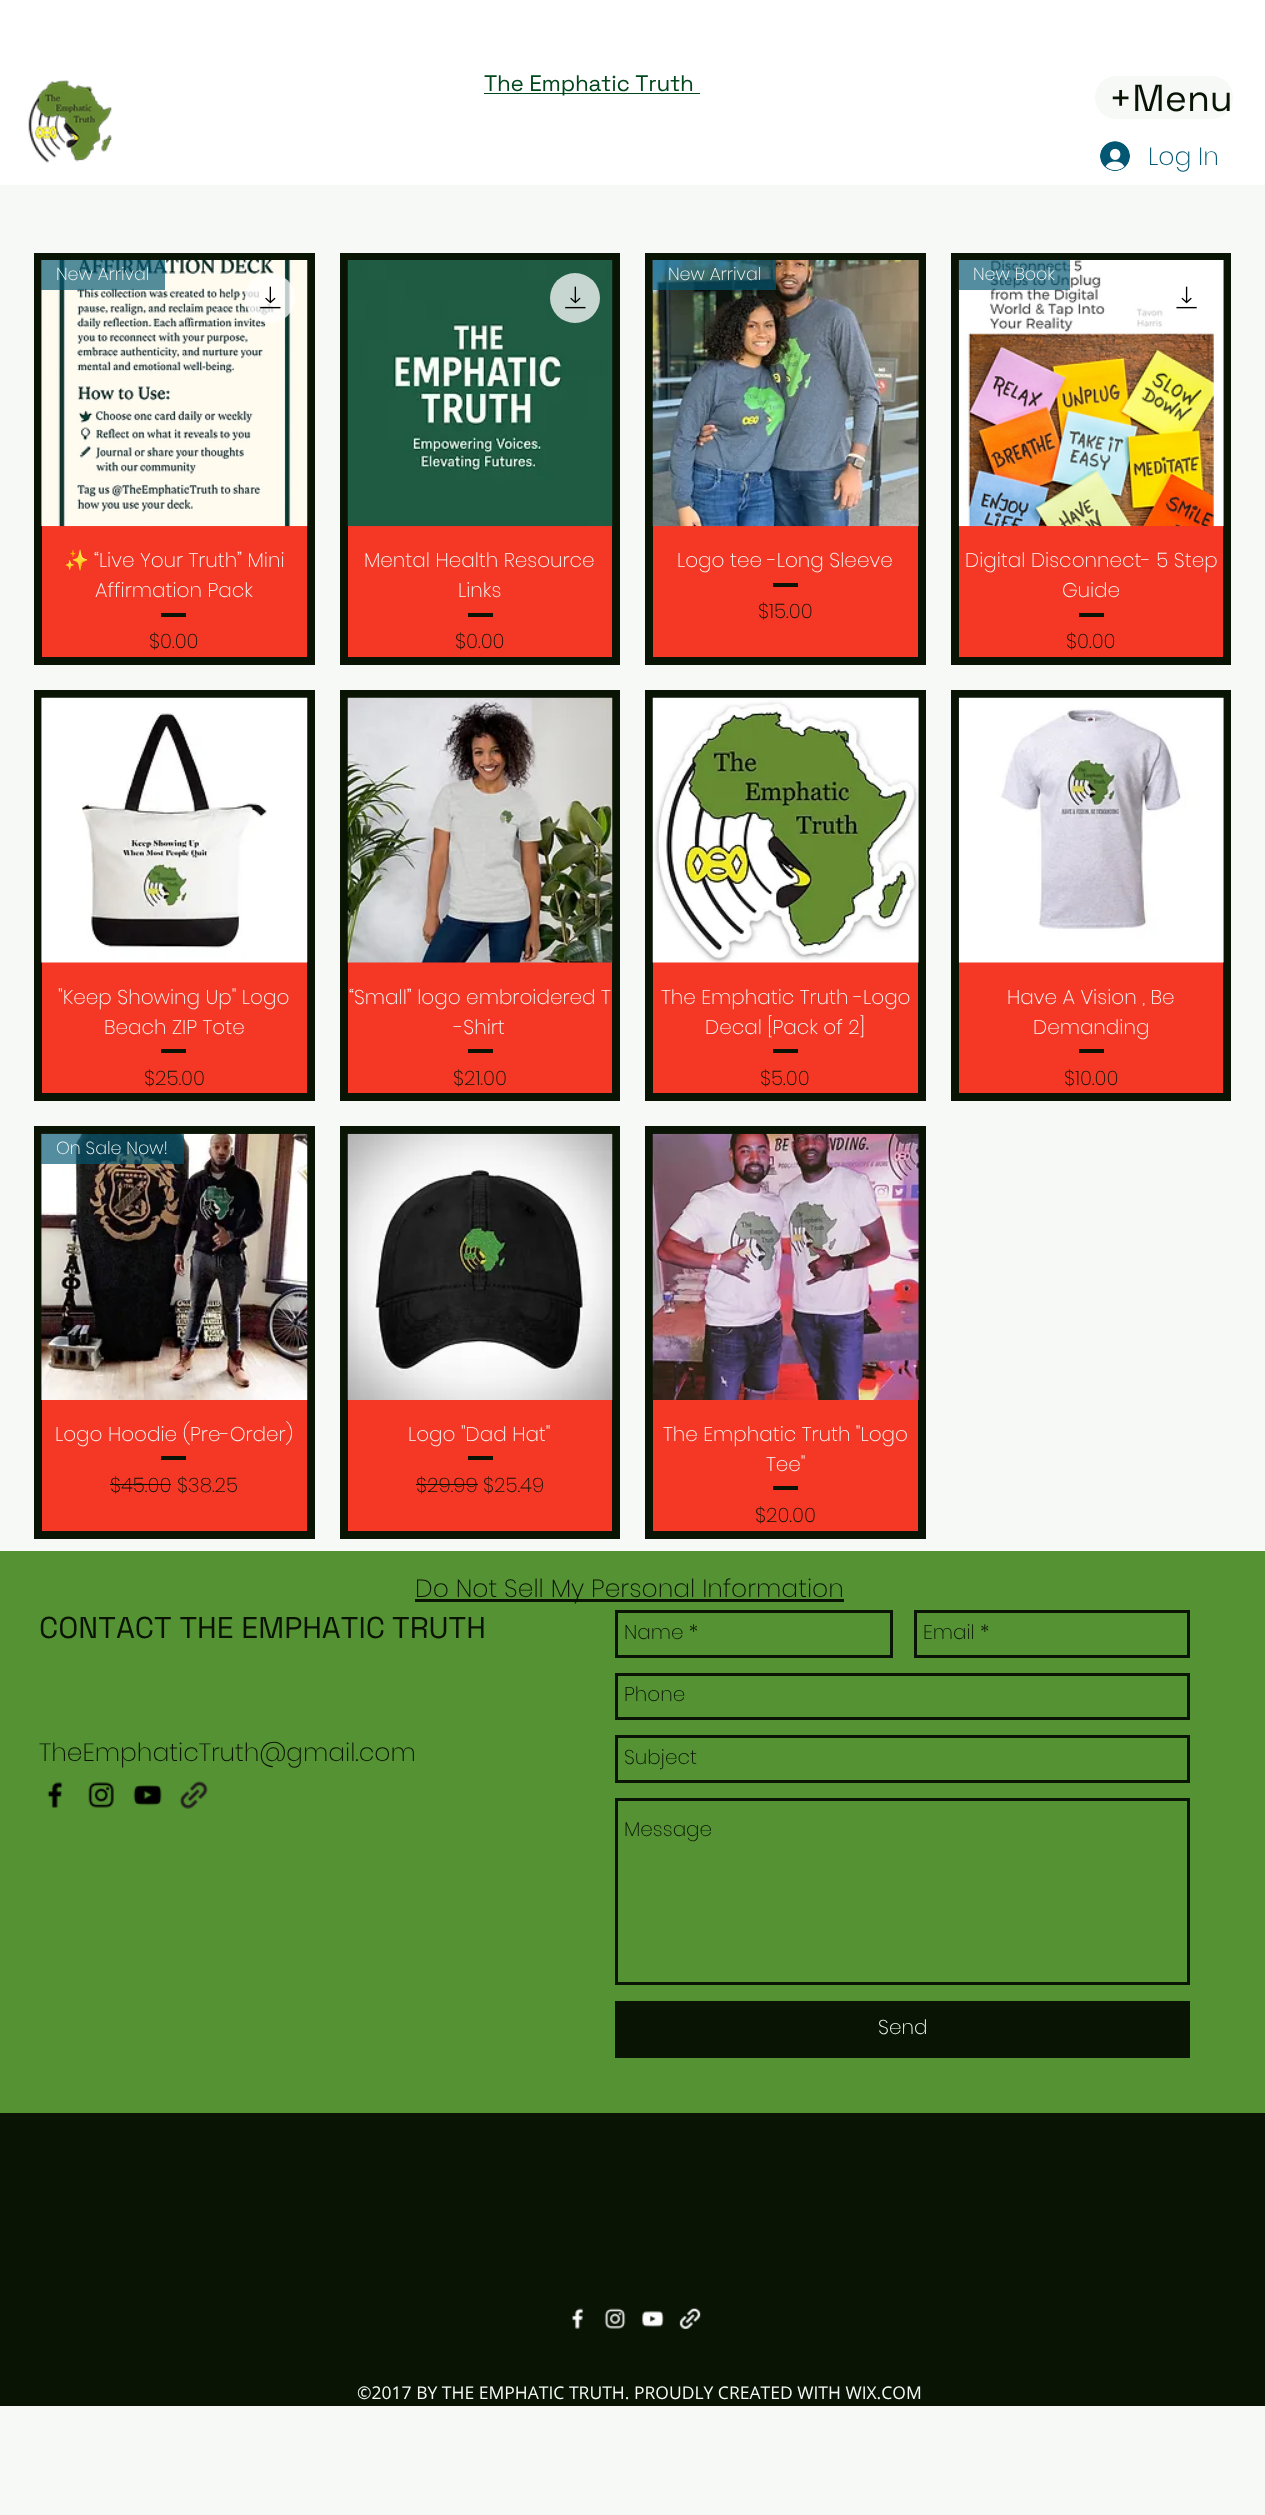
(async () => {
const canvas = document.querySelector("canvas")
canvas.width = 1265
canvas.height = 2515
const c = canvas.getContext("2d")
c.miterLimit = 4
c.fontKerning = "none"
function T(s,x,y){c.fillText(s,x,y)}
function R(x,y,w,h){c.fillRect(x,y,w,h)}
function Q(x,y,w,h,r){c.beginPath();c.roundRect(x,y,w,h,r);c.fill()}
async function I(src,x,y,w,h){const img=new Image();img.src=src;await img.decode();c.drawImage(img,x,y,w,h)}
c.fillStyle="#f6f9f5"
R(0,0,1265,2515)
c.fillStyle="#fff"
R(0,0,1265,185)
await I("1.png",28,80,84,83)
c.fillStyle="#00471c"
R(484,93,216,1)
c.letterSpacing="-0.25px"
c.font="22.5px Space Grotesk"
T("The Emphatic Truth",484,91)
c.fillStyle="#f6f9f5"
Q(1095,76,138,43,21.5)
c.letterSpacing="0px"
c.font="37.5px Space Grotesk"
c.fillStyle="#091405"
T("+Menu",1109,111)
await I("2.png",1100,141,30,30)
c.font="200 25px Poppins"
c.fillStyle="#035772"
T("Log In",1148,165)
c.fillStyle="#f53726"
R(42,526,265,131)
c.strokeStyle="#091405"
c.lineWidth=8
c.strokeRect(38,257,273,404)
await I("3.png",41,260,267,267)
c.fillStyle="#ffffffbf"
c.beginPath()
c.arc(270,298,25,0,7)
c.fill()
await I("4.png",260,286,21,23)
c.fillStyle="#035772ad"
R(41,260,124,30)
c.font="200 17.5px Poppins"
c.fillStyle="#f6f9f5"
T("New Arrival",56,280)
c.font="20px Noto Color Emoji"
T("✨",64,567)
c.font="200 20px Poppins"
T("“Live Your Truth” Mini",94,567)
T("Affirmation Pack",95,597)
c.fillStyle="#091405"
R(161,613,25,4)
T("$0.00",149,648)
c.fillStyle="#f53726"
R(348,526,264,131)
c.strokeRect(344,257,272,404)
await I("5.png",347,260,266,267)
c.fillStyle="#c7d6d0"
c.beginPath()
c.arc(575,298,25,0,7)
c.fill()
await I("6.png",565,286,21,23)
c.fillStyle="#f6f9f5"
T("Mental Health Resource",364,567)
T("Links",458,597)
c.fillStyle="#091405"
R(468,613,25,4)
T("$0.00",455,648)
c.fillStyle="#f53726"
R(653,526,265,131)
c.strokeRect(649,257,273,404)
await I("7.png",652,260,267,267)
c.fillStyle="#035772ad"
R(653,260,123,30)
c.font="200 17.5px Poppins"
c.fillStyle="#f6f9f5"
T("New Arrival",668,280)
c.font="200 20px Poppins"
T("Logo tee -Long Sleeve",677,567)
c.fillStyle="#091405"
R(773,583,25,4)
T("$15.00",758,618)
c.fillStyle="#f53726"
R(959,526,264,131)
c.strokeRect(955,257,272,404)
await I("8.png",958,260,266,267)
await I("9.png",1176,286,21,23)
c.fillStyle="#035772ad"
R(959,260,111,30)
c.font="200 17.5px Poppins"
c.fillStyle="#f6f9f5"
T("New Book",973,280)
c.font="200 20px Poppins"
T("Digital Disconnect- 5 Step",965,567)
T("Guide",1062,597)
c.fillStyle="#091405"
R(1079,613,25,4)
T("$0.00",1066,648)
c.fillStyle="#f53726"
R(42,962,265,131)
c.strokeRect(38,694,273,403)
await I("10.png",41,697,267,266)
c.fillStyle="#f6f9f5"
T("\"Keep Showing Up\" Logo",58,1004)
T("Beach ZIP Tote",104,1034)
c.fillStyle="#091405"
R(161,1049,25,4)
T("$25.00",144,1085)
c.fillStyle="#f53726"
R(348,962,264,131)
c.strokeRect(344,694,272,403)
await I("11.png",347,697,266,266)
c.fillStyle="#f6f9f5"
T("“Small” logo embroidered T",349,1004)
T("-Shirt",454,1034)
c.fillStyle="#091405"
R(468,1049,25,4)
T("$21.00",453,1085)
c.fillStyle="#f53726"
R(653,962,265,131)
c.strokeRect(649,694,273,403)
await I("12.png",652,697,267,266)
c.fillStyle="#f6f9f5"
T("The Emphatic Truth -Logo",661,1004)
T("Decal [Pack of 2]",705,1034)
c.fillStyle="#091405"
R(773,1049,25,4)
T("$5.00",760,1085)
c.fillStyle="#f53726"
R(959,962,264,131)
c.strokeRect(955,694,272,403)
await I("13.png",958,697,266,266)
c.fillStyle="#f6f9f5"
T("Have A Vision , Be",1007,1004)
T("Demanding",1033,1034)
c.fillStyle="#091405"
R(1079,1049,25,4)
T("$10.00",1064,1085)
c.fillStyle="#f53726"
R(42,1400,265,131)
c.strokeRect(38,1130,273,405)
await I("14.png",41,1133,267,267)
c.fillStyle="#035772ad"
R(41,1134,143,30)
c.font="200 17.5px Poppins"
c.fillStyle="#f6f9f5"
T("On Sale Now!",56,1154)
c.font="200 20px Poppins"
T("Logo Hoodie (Pre-Order)",55,1441)
c.fillStyle="#091405"
R(161,1456,25,4)
T("$45.00",110,1492)
R(110,1484,61,1)
T("$38.25",177,1492)
c.fillStyle="#f53726"
R(348,1400,264,131)
c.strokeRect(344,1130,272,405)
await I("15.png",347,1133,266,267)
c.fillStyle="#f6f9f5"
T("Logo \"Dad Hat\"",408,1441)
c.fillStyle="#091405"
R(468,1456,25,4)
T("$29.99",416,1492)
R(416,1484,62,1)
T("$25.49",483,1492)
c.fillStyle="#f53726"
R(653,1400,265,131)
c.strokeRect(649,1130,273,405)
await I("16.png",652,1133,267,267)
c.fillStyle="#f6f9f5"
T("The Emphatic Truth \"Logo",663,1441)
T("Tee\"",766,1471)
c.fillStyle="#091405"
R(773,1486,25,4)
T("$20.00",755,1522)
c.fillStyle="#559233"
R(0,1551,1265,562)
c.fillStyle="#091405"
R(415,1599,429,3)
c.font="200 25px Poppins"
T("Do Not Sell My Personal Information",415,1597)
c.font="30px Space Grotesk"
T("CONTACT THE EMPHATIC",39,1638)
T("TRUTH",392,1638)
c.font="200 25px Poppins"
T("TheEmphaticTruth@gmail.com",39,1761)
await I("17.png",47,1782,16,26)
await I("18.png",88,1782,26,26)
await I("19.png",133,1785,29,21)
await I("20.png",180,1781,28,28)
c.lineWidth=3
c.strokeRect(616.5,1611.5,275,45)
c.font="200 20px Poppins"
T("Name *",624,1639)
c.strokeRect(915.5,1611.5,273,45)
T("Email *",923,1639)
c.strokeRect(616.5,1674.5,572,44)
T("Phone",624,1701)
c.strokeRect(616.5,1736.5,572,45)
T("Subject",624,1764)
c.strokeRect(616.5,1799.5,572,184)
T("Message",624,1836)
R(615,2001,575,57)
c.fillStyle="#f6f9f5"
T("Send",878,2034)
c.fillStyle="#091405"
R(0,2113,1265,293)
await I("21.png",572,2308,12,21)
await I("22.png",604,2308,22,21)
await I("23.png",641,2311,23,16)
await I("24.png",679,2308,22,22)
c.font="17.5px Open Sans"
c.fillStyle="#f6f9f5"
T("©2017 BY THE EMPHATIC TRUTH. PROUDLY CREATED WITH WIX.COM",357,2399)
})()
